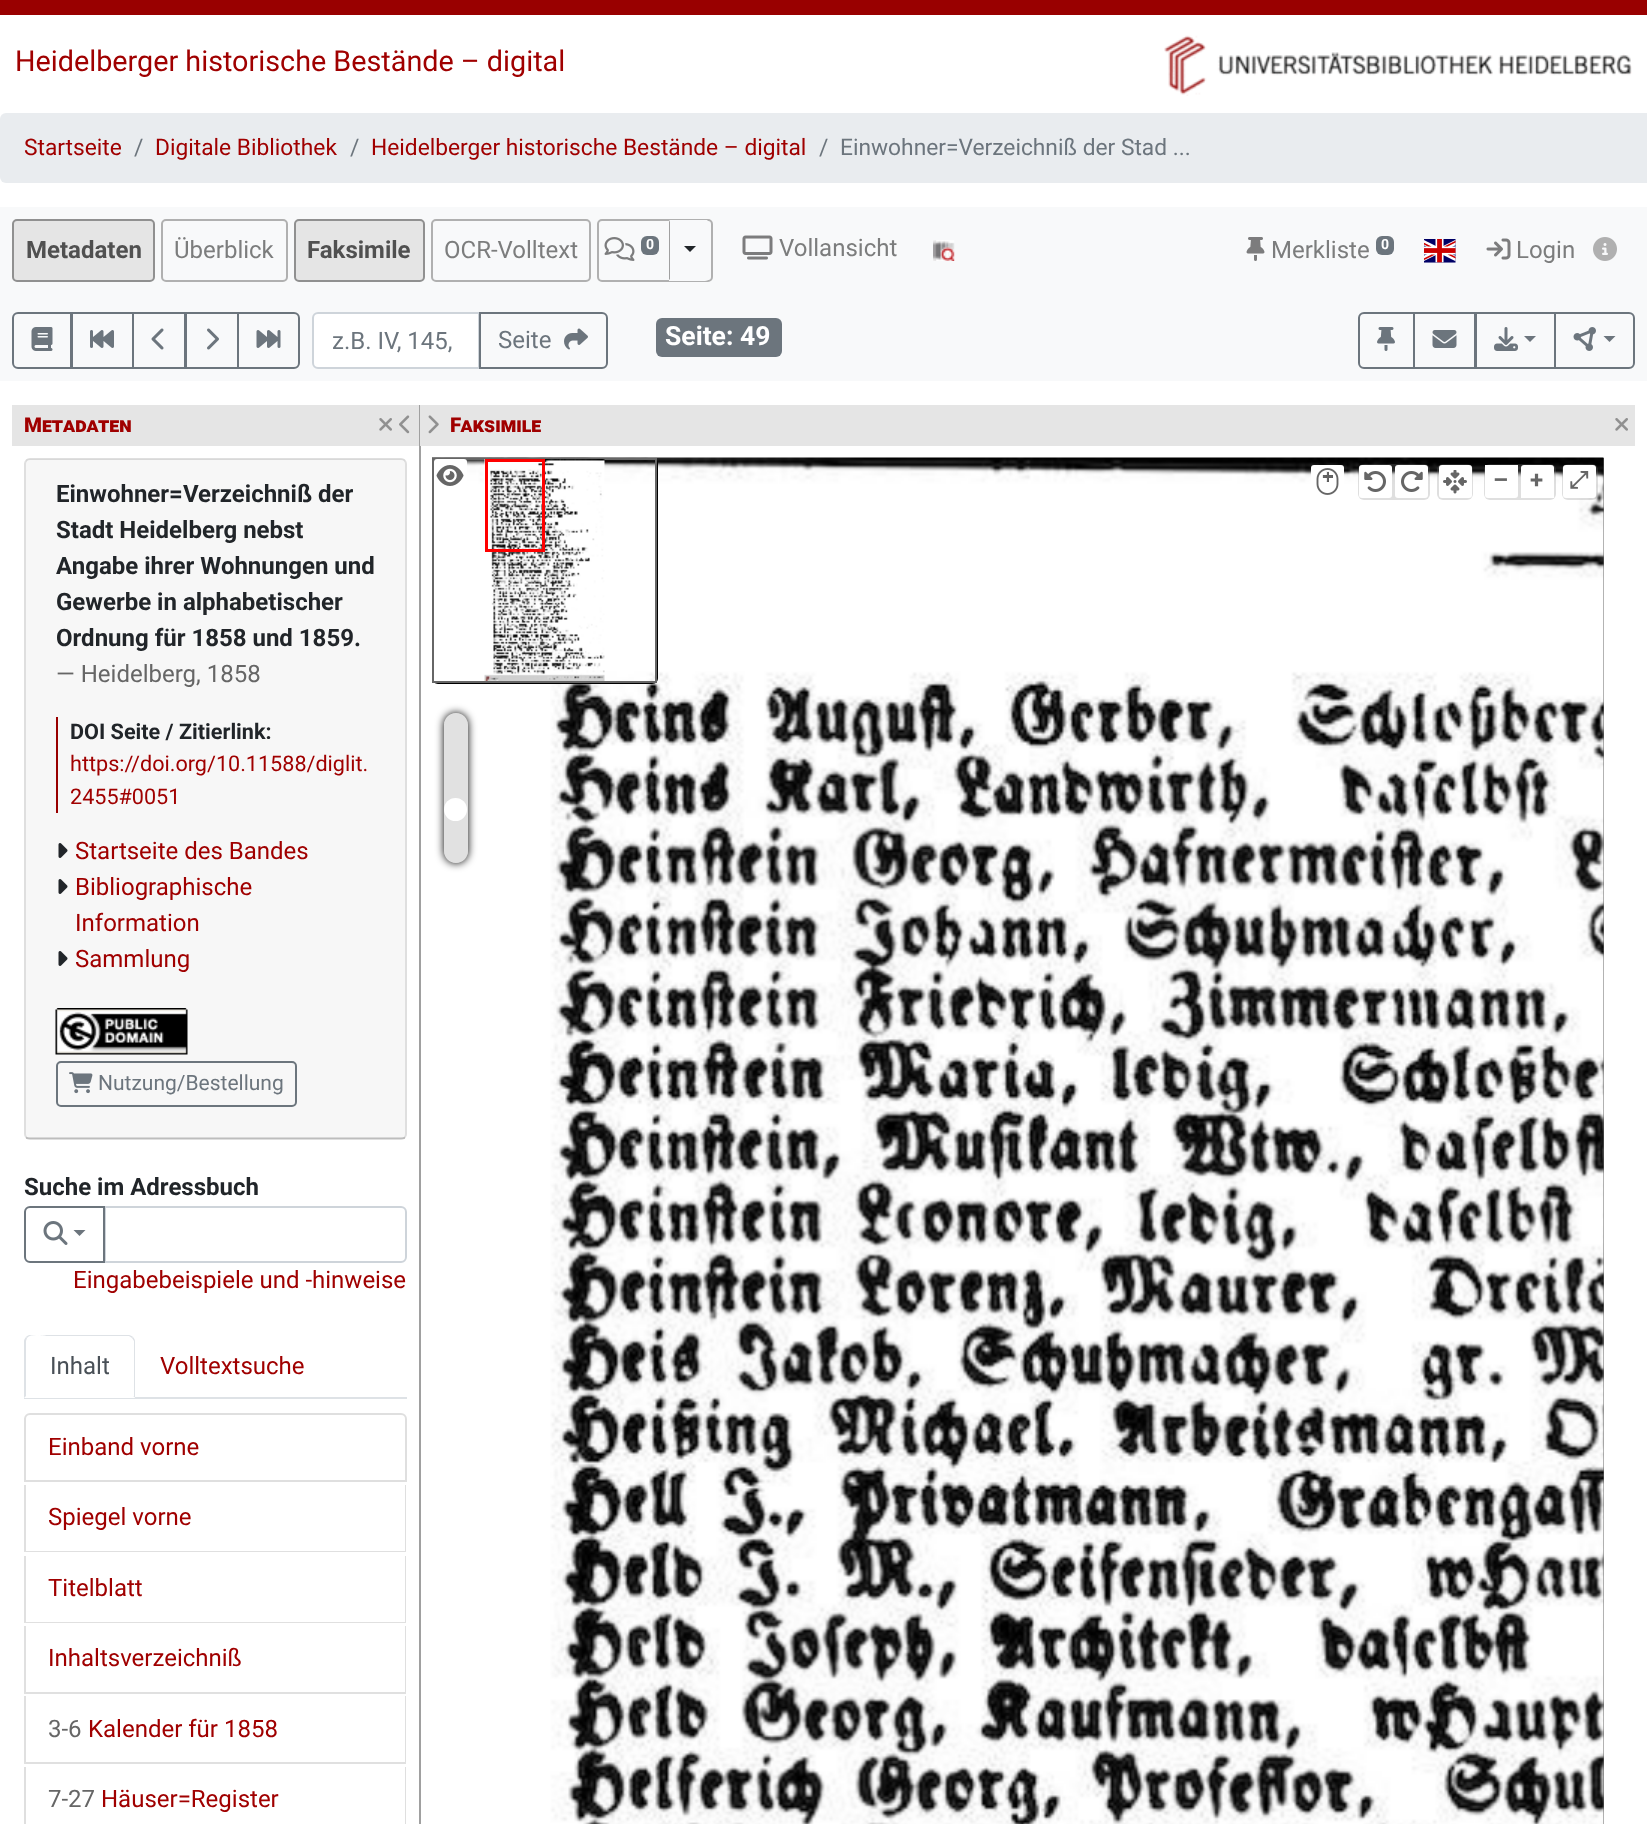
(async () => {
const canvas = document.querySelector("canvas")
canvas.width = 1647
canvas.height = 1824
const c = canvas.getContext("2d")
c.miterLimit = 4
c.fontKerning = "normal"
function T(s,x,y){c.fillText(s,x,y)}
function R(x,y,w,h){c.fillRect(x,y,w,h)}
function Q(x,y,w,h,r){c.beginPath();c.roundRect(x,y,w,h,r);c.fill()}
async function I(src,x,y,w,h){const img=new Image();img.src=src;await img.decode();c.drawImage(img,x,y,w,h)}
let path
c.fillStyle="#fff"
R(0,0,1647,1824)
c.fillStyle="#900"
R(0,0,1647,15)
c.font="28.75px Roboto"
c.fillStyle="#a00000"
T("Heidelberger historische Bestände – digital",15,71)
await I("1.png",1164,35,468,61)
c.fillStyle="#e9ecef"
c.beginPath()
c.roundRect(0,113,1647,70,[6,0,0,6])
c.fill()
c.font="22.75px Roboto"
c.fillStyle="#a00000"
T("Startseite",24,155)
c.fillStyle="#6c757d"
T("/",134,155)
c.fillStyle="#a00000"
T("Digitale Bibliothek",155,155)
c.fillStyle="#6c757d"
T("/",350,155)
c.fillStyle="#a00000"
T("Heidelberger historische Bestände – digital",371,155)
c.fillStyle="#6c757d"
T("/",819,155)
T("Einwohner=Verzeichniß der Stad ...",840,155)
c.fillStyle="#f8f9fa"
R(0,207,1647,174)
c.fillStyle="#e5e5e5"
c.beginPath()
c.roundRect(13,220,141,61,4)
c.fill()
c.strokeStyle="#909090"
c.lineWidth=2
c.stroke()
c.font="bold 24px Roboto"
c.fillStyle="#505050"
T("Metadaten",26,258)
c.beginPath()
c.roundRect(162,220,125,61,4)
c.strokeStyle="#b0b0b0"
c.stroke()
c.font="24px Roboto"
c.fillStyle="#7c7d7d"
T("Überblick",174,258)
c.fillStyle="#e5e5e5"
c.beginPath()
c.roundRect(295,220,129,61,4)
c.fill()
c.strokeStyle="#909090"
c.stroke()
c.font="bold 24px Roboto"
c.fillStyle="#505050"
T("Faksimile",307,258)
c.beginPath()
c.roundRect(432,220,158,61,4)
c.strokeStyle="#b0b0b0"
c.stroke()
c.font="24px Roboto"
c.fillStyle="#7c7d7d"
T("OCR-Volltext",444,258)
c.beginPath()
c.roundRect(598,220,114,61,4)
c.stroke()
await I("2.png",604,237,31,24)
c.fillStyle="#6c757d"
Q(641,236,18,19,6)
c.font="bold 14px Roboto"
c.fillStyle="#fff"
T("0",646,249)
c.fillStyle="#f8f9fa"
c.beginPath()
c.roundRect(669,221,42,60,[0,6,6,0])
c.fill()
path = new Path2D("M669 220h38l2 2l-1 1c-1-1-2-1-3-1h-35z")
c.fill(path)
c.fillStyle="#a0a0a0"
path = new Path2D("M670 222l-1-2v60l1-1z")
c.fill(path)
c.fillStyle="#212529"
path = new Path2D("M684 246h12l-6 6z")
c.fill(path)
await I("3.png",742,235,31,25)
c.font="24px Roboto"
c.fillStyle="#7c7d7d"
T("Vollansicht",779,256)
await I("4.png",933,240,22,21)
await I("5.png",1246,237,19,24)
T("Merkliste",1271,258)
c.fillStyle="#6c757d"
Q(1376,236,18,19,6)
c.font="bold 14px Roboto"
c.fillStyle="#fff"
T("0",1381,249)
await I("6.png",1424,239,32,24)
await I("7.png",1486,238,25,22)
c.font="24px Roboto"
c.fillStyle="#7c7d7d"
T("Login",1516,258)
await I("8.png",1593,237,24,24)
c.beginPath()
c.roundRect(13,313,58,55,[5,0,0,5])
c.strokeStyle="#6c757d"
c.stroke()
await I("9.png",31,327,22,24)
c.strokeRect(72,313,61,55)
await I("10.png",90,330,24,18)
c.strokeRect(133,313,52,55)
await I("11.png",151,328,13,22)
c.strokeRect(186,313,52,55)
await I("12.png",207,328,12,22)
c.beginPath()
c.roundRect(238,313,61,55,[0,5,5,0])
c.stroke()
await I("13.png",256,330,25,18)
c.fillStyle="#fff"
c.beginPath()
c.roundRect(313,313,166,55,[5,0,0,5])
c.fill()
c.strokeStyle="#ced4da"
c.stroke()
c.fillStyle="#6c757d"
T("z.B. IV, 145,",332,349)
c.beginPath()
c.roundRect(480,313,127,55,[0,5,5,0])
c.strokeStyle="#6c757d"
c.stroke()
T("Seite",498,348)
await I("14.png",564,328,24,22)
Q(656,318,126,39,6)
c.font="bold 26.5px Roboto"
c.fillStyle="#fff"
T("Seite: 49",665,345)
c.beginPath()
c.roundRect(1359,313,55,55,[5,0,0,5])
c.stroke()
await I("15.png",1377,327,18,24)
c.strokeRect(1414,313,61,55)
await I("16.png",1432,330,25,18)
c.strokeRect(1476,313,79,55)
await I("17.png",1494,327,24,24)
c.fillStyle="#6c757d"
path = new Path2D("M1524 336h12l-6 6z")
c.fill(path)
c.beginPath()
c.roundRect(1555,313,79,55,[0,5,5,0])
c.stroke()
await I("18.png",1573,327,23,24)
path = new Path2D("M1603.5 336h12l-6 6z")
c.fill(path)
c.fillStyle="#e5e5e5"
R(12,405,407,41)
c.font="900 20.5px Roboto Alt"
c.fillStyle="#a00000"
T("Metadaten",24,432)
await I("19.png",379,418,13,13)
await I("20.png",399,415,11,19)
c.beginPath()
c.roundRect(25,459,381,680,5)
c.strokeStyle="#dfdfdf"
c.stroke()
c.fillStyle="#00000008"
R(26,459,379,680)
c.fillStyle="#0000001f"
R(26,1137,379,2)
c.font="bold 24px Roboto"
c.fillStyle="#212529"
T("Einwohner=Verzeichniß der",56,502)
T("Stadt Heidelberg nebst",56,538)
T("Angabe ihrer Wohnungen und",56,574)
T("Gewerbe in alphabetischer",56,610)
T("Ordnung für 1858 und 1859.",56,646)
c.font="24px Roboto"
c.fillStyle="#666"
T("— Heidelberg, 1858",56,682)
c.fillStyle="#900"
R(56,717,2,96)
c.font="bold 21.6px Roboto"
c.fillStyle="#212529"
T("DOI Seite / Zitierlink:",70,739)
c.font="21.6px Roboto"
c.fillStyle="#a00000"
T("https://doi.org/10.11588/diglit.",70,771)
T("2455#0051",70,804)
await I("21.png",58,843,10,15)
c.font="24px Roboto"
T("Startseite des Bandes",75,859)
await I("21.png",58,879,10,15)
T("Bibliographische",75,895)
T("Information",75,931)
await I("21.png",58,951,10,15)
T("Sammlung",75,967)
await I("22.png",55,1008,133,47)
c.beginPath()
c.roundRect(57,1062,239,44,4)
c.strokeStyle="#6c757d"
c.stroke()
await I("23.png",69,1072,24,22)
c.font="21px Roboto"
c.fillStyle="#6c757d"
T("Nutzung/Bestellung",98,1090)
c.font="bold 24px Roboto"
c.fillStyle="#212529"
T("Suche im Adressbuch",24,1195)
c.beginPath()
c.roundRect(105,1207,301,55,[0,5,5,0])
c.strokeStyle="#ced4da"
c.stroke()
c.beginPath()
c.roundRect(25,1207,79,55,[5,0,0,5])
c.strokeStyle="#6c757d"
c.stroke()
await I("24.png",43,1221,25,24)
c.fillStyle="#6c757d"
path = new Path2D("M73.5 1230h12l-6 6z")
c.fill(path)
c.font="24px Roboto"
c.fillStyle="#a00000"
T("Eingabebeispiele und -hinweise",73,1288)
c.fillStyle="#dee2e6"
R(24,1397,383,2)
c.fillStyle="#fff"
c.beginPath()
c.roundRect(24,1335,111,63,[6,6,0,0])
c.fill()
c.fillStyle="#dee2e6"
path = new Path2D("M30 1335c-2 0-3 1-4 2l1 1c4-5 18-2 19-2h83l3 2l1-1c-1-1-3-2-4-2z")
c.fill(path)
path = new Path2D("M135 1398v-57c0-1-1-3-2-4l-1 1l2 3v55h-1z")
c.fill(path)
c.fillStyle="#fff"
path = new Path2D("M135 1398l-2-2h-107l-2 2z")
c.fill(path)
c.fillStyle="#dee2e6"
path = new Path2D("M24 1398l2-2v-55l1-3l-1-1c-1 1-2 3-2 4z")
c.fill(path)
c.fillStyle="#495057"
T("Inhalt",50,1374)
c.fillStyle="#a00000"
T("Volltextsuche",160,1374)
c.beginPath()
c.roundRect(25,1414,381,67,[5,5,0,0])
c.strokeStyle="#dfdfdf"
c.stroke()
T("Einband vorne",48,1455)
c.fillStyle="#dfdfdf"
path = new Path2D("M406 1485v67l-1-1v-66z")
c.fill(path)
c.fillStyle="#0000001f"
path = new Path2D("M406 1552h-382l2-1h379z")
c.fill(path)
path = new Path2D("M24 1552v-67h2v66z")
c.fill(path)
c.fillStyle="#a00000"
T("Spiegel vorne",48,1525)
c.fillStyle="#dfdfdf"
path = new Path2D("M406 1556v67l-1-1v-66z")
c.fill(path)
c.fillStyle="#0000001f"
path = new Path2D("M406 1623h-382l2-1h379z")
c.fill(path)
path = new Path2D("M24 1623v-67h2v66z")
c.fill(path)
c.fillStyle="#a00000"
T("Titelblatt",48,1596)
c.fillStyle="#dfdfdf"
path = new Path2D("M406 1626v68l-1-2v-66z")
c.fill(path)
c.fillStyle="#0000001f"
path = new Path2D("M406 1694h-382l2-2h379z")
c.fill(path)
path = new Path2D("M24 1694v-68h2v66z")
c.fill(path)
c.fillStyle="#a00000"
T("Inhaltsverzeichniß",48,1666)
c.fillStyle="#dfdfdf"
path = new Path2D("M406 1696v68l-1-2v-66z")
c.fill(path)
c.fillStyle="#0000001f"
path = new Path2D("M406 1764h-382l2-2h379z")
c.fill(path)
path = new Path2D("M24 1764v-68h2v66z")
c.fill(path)
c.fillStyle="#666"
T("3-6",48,1737)
c.fillStyle="#a00000"
T("Kalender für 1858",88,1737)
c.fillStyle="#dfdfdf"
path = new Path2D("M406 1767v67l-1-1v-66z")
c.fill(path)
path = new Path2D("M24 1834v-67h2v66z")
c.fill(path)
c.fillStyle="#666"
T("7-27",48,1807)
c.fillStyle="#a00000"
T("Häuser=Register",101,1807)
c.fillStyle="#a0a0a0"
R(419,405,2,1419)
c.fillStyle="#e5e5e5"
R(420,405,1215,41)
await I("25.png",428,415,11,19)
c.font="900 20.5px Roboto Alt"
c.fillStyle="#a00000"
T("Faksimile",450,432)
await I("19.png",1615,418,13,13)
c.fillStyle="#666"
R(1603,458,1,1366)
await I("26.png",432,457,1172,1367)
c.fillStyle="#000"
path = new Path2D("M438 458h214c4 0 6 2 6 6v214c0 3-2 6-6 6h-214c-3 0-6-3-6-6v-214c0-4 3-6 6-6zm0 0h214c3 0 5 2 5 6v214c0 2-2 4-5 4h-214c-3 0-6-2-6-4v-214c0-4 3-6 6-6z")
c.fill(path,"evenodd")
c.strokeStyle="#666"
c.strokeRect(433,459,223,223)
await I("27.png",484,459,121,222)
c.strokeStyle="#f00"
c.lineWidth=3
c.strokeRect(486.5,460.5,57,90)
c.fillStyle="#fff"
Q(434,459,33,33,3)
await I("28.png",436,465,28,21)
Q(1311,465,33,33,3)
await I("29.png",1316,468,23,27)
c.fillStyle="#80808040"
Q(1358,464,72,36,6)
c.fillStyle="#fff"
Q(1359,465,33,33,3)
await I("30.png",1364,471,22,21)
Q(1395,465,33,33,3)
await I("31.png",1401,471,22,21)
c.fillStyle="#80808040"
Q(1437,464,36,36,6)
c.fillStyle="#fff"
Q(1439,465,33,33,3)
await I("32.png",1443,470,24,24)
c.fillStyle="#80808040"
Q(1484,464,72,36,6)
c.fillStyle="#fff"
c.beginPath()
c.roundRect(1485,465,33,33,[0,0,3,3])
c.fill()
c.font="bold 24px Roboto"
c.fillStyle="#666"
T("–",1493,488)
c.fillStyle="#fff"
c.beginPath()
c.roundRect(1521,465,33,33,[3,3,0,0])
c.fill()
c.fillStyle="#666"
T("+",1530,488)
c.fillStyle="#80808040"
Q(1562,464,36,36,6)
c.fillStyle="#fff"
Q(1563,465,33,33,3)
c.font="bold 24px FreeSerif"
c.fillStyle="#666"
T("⤢",1569,488)
c.save()
path = new Path2D("M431 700h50v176h-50zm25 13c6.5 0 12 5.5 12 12v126c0 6.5-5.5 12-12 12c-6.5 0-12-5.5-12-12v-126c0-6.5 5.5-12 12-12z")
c.clip(path,"evenodd")
c.fillStyle="#000"
c.filter="blur(4px)"
c.beginPath()
c.roundRect(444,713,24,150,12)
c.fill()
c.filter="none"
c.restore()
c.fillStyle="#b4b4b466"
Q(444,713,24,150,12)
c.fillStyle="#fff"
c.beginPath()
c.arc(455.5,809.5,11.5,0,7)
c.fill()
})()
